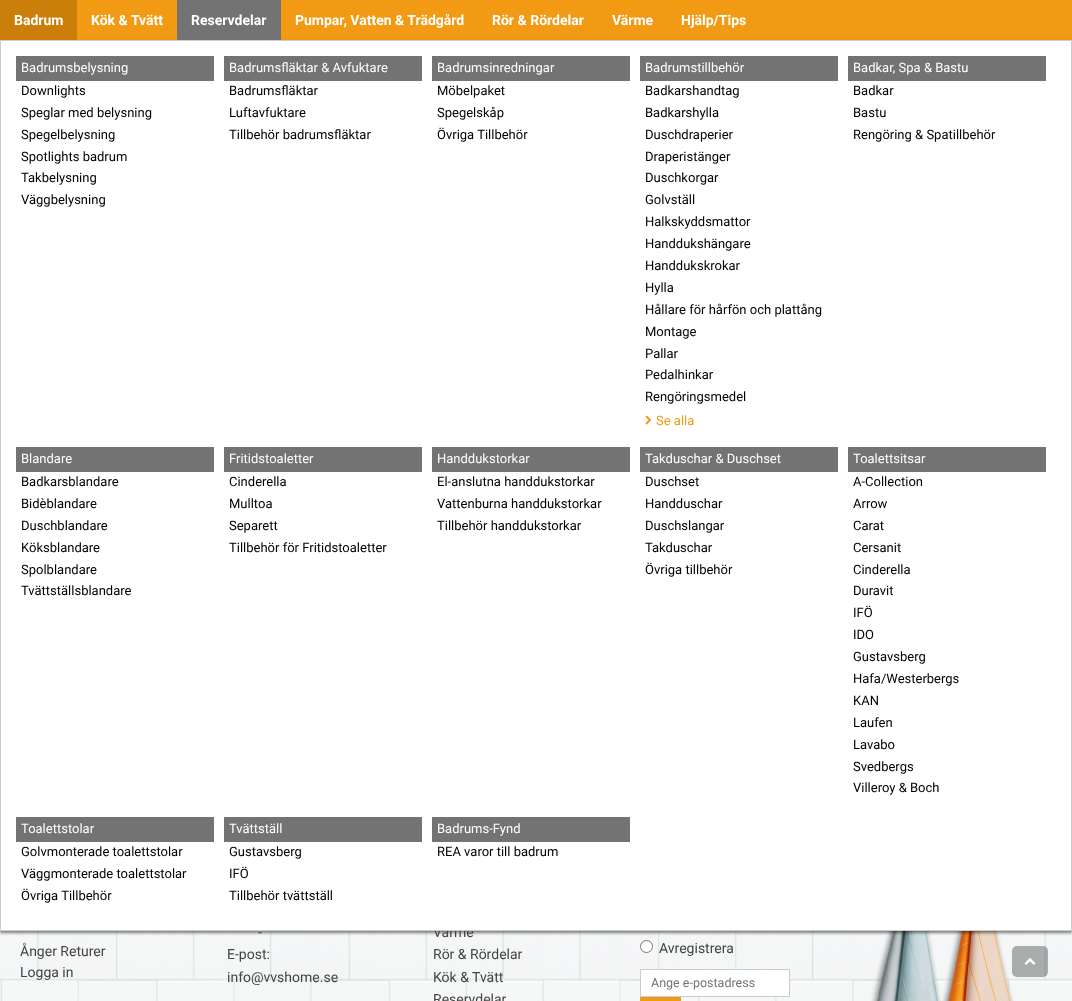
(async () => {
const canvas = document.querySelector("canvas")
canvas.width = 1072
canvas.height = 1001
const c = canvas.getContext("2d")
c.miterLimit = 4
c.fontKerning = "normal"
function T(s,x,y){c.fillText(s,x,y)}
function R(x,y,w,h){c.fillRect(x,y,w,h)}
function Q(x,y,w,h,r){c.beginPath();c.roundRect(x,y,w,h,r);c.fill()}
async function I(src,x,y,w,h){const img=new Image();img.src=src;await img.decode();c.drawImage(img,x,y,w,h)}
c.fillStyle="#fff"
R(0,0,1072,1001)
c.fillStyle="#f39a15"
R(77,0,995,40)
c.font="bold 14px Roboto"
c.fillStyle="#fff"
T("Pumpar, Vatten & Trädgård",295,25)
c.fillStyle="#cb7e0a"
R(0,0,77,40)
c.fillStyle="#fff"
T("Badrum",14,25)
c.fillStyle="#737373"
R(177,0,104,40)
await I("2.png",0,931,1072,70)
await I("3.png",871,931,143,70)
c.fillStyle="#00000080"
c.filter="blur(1.5px)"
c.beginPath()
c.rect(0,42,1072,891)
c.fill()
c.filter="none"
c.font="14px Roboto"
c.fillStyle="#444"
T("Värme",433,937)
c.fillStyle="#fff"
c.beginPath()
c.rect(.5,40.5,1071,890)
c.fill()
c.strokeStyle="#ccc"
c.stroke()
c.fillStyle="#737373"
R(16,56,198,25)
c.font="13px Roboto"
c.fillStyle="#fff"
T("Badrumsbelysning",21,72)
c.fillStyle="#000"
T("Downlights",21,95)
T("Speglar med belysning",21,117)
T("Spegelbelysning",21,139)
T("Spotlights badrum",21,161)
T("Takbelysning",21,182)
T("Väggbelysning",21,204)
c.fillStyle="#737373"
R(224,56,198,25)
c.fillStyle="#fff"
T("Badrumsfläktar & Avfuktare",229,72)
c.fillStyle="#000"
T("Badrumsfläktar",229,95)
T("Luftavfuktare",229,117)
T("Tillbehör badrumsfläktar",229,139)
c.fillStyle="#737373"
R(432,56,198,25)
c.fillStyle="#fff"
T("Badrumsinredningar",437,72)
c.fillStyle="#000"
T("Möbelpaket",437,95)
T("Spegelskåp",437,117)
T("Övriga Tillbehör",437,139)
c.fillStyle="#737373"
R(640,56,198,25)
c.fillStyle="#fff"
T("Badrumstillbehör",645,72)
c.fillStyle="#000"
T("Badkarshandtag",645,95)
T("Badkarshylla",645,117)
T("Duschdraperier",645,139)
T("Draperistänger",645,161)
T("Duschkorgar",645,182)
T("Golvställ",645,204)
T("Halkskyddsmattor",645,226)
T("Handdukshängare",645,248)
T("Handdukskrokar",645,270)
T("Hylla",645,292)
T("Hållare för hårfön och plattång",645,314)
T("Montage",645,336)
T("Pallar",645,358)
T("Pedalhinkar",645,379)
T("Rengöringsmedel",645,401)
await I("1.png",645,415,7,10)
c.fillStyle="#f39a15"
T("Se alla",656,425)
c.fillStyle="#737373"
R(848,56,198,25)
c.fillStyle="#fff"
T("Badkar, Spa & Bastu",853,72)
c.fillStyle="#000"
T("Badkar",853,95)
T("Bastu",853,117)
T("Rengöring & Spatillbehör",853,139)
c.fillStyle="#737373"
R(16,447,198,25)
c.fillStyle="#fff"
T("Blandare",21,463)
c.fillStyle="#000"
T("Badkarsblandare",21,486)
T("Bidèblandare",21,508)
T("Duschblandare",21,530)
T("Köksblandare",21,552)
T("Spolblandare",21,574)
T("Tvättställsblandare",21,595)
c.fillStyle="#737373"
R(224,447,198,25)
c.fillStyle="#fff"
T("Fritidstoaletter",229,463)
c.fillStyle="#000"
T("Cinderella",229,486)
T("Mulltoa",229,508)
T("Separett",229,530)
T("Tillbehör för Fritidstoaletter",229,552)
c.fillStyle="#737373"
R(432,447,198,25)
c.fillStyle="#fff"
T("Handdukstorkar",437,463)
c.fillStyle="#000"
T("El-anslutna handdukstorkar",437,486)
T("Vattenburna handdukstorkar",437,508)
T("Tillbehör handdukstorkar",437,530)
c.fillStyle="#737373"
R(640,447,198,25)
c.fillStyle="#fff"
T("Takduschar & Duschset",645,463)
c.fillStyle="#000"
T("Duschset",645,486)
T("Handduschar",645,508)
T("Duschslangar",645,530)
T("Takduschar",645,552)
T("Övriga tillbehör",645,574)
c.fillStyle="#737373"
R(848,447,198,25)
c.fillStyle="#fff"
T("Toalettsitsar",853,463)
c.fillStyle="#000"
T("A-Collection",853,486)
T("Arrow",853,508)
T("Carat",853,530)
T("Cersanit",853,552)
T("Cinderella",853,574)
T("Duravit",853,595)
T("IFÖ",853,617)
T("IDO",853,639)
T("Gustavsberg",853,661)
T("Hafa/Westerbergs",853,683)
T("KAN",853,705)
T("Laufen",853,727)
T("Lavabo",853,749)
T("Svedbergs",853,771)
T("Villeroy & Boch",853,792)
c.fillStyle="#737373"
R(16,817,198,25)
c.fillStyle="#fff"
T("Toalettstolar",21,833)
c.fillStyle="#000"
T("Golvmonterade toalettstolar",21,856)
T("Väggmonterade toalettstolar",21,878)
T("Övriga Tillbehör",21,900)
c.fillStyle="#737373"
R(224,817,198,25)
c.fillStyle="#fff"
T("Tvättställ",229,833)
c.fillStyle="#000"
T("Gustavsberg",229,856)
T("IFÖ",229,878)
T("Tillbehör tvättställ",229,900)
c.fillStyle="#737373"
R(432,817,198,25)
c.fillStyle="#fff"
T("Badrums-Fynd",437,833)
c.fillStyle="#000"
T("REA varor till badrum",437,856)
c.font="bold 14px Roboto"
c.fillStyle="#fff"
T("Kök & Tvätt",91,25)
T("Reservdelar",191,25)
T("Rör & Rördelar",492,25)
T("Värme",612,25)
T("Hjälp/Tips",681,25)
c.font="14px Roboto"
c.fillStyle="#444"
T("Ånger Returer",20,956)
T("Logga in",20,977)
T("-",258,937)
T("E-post:",227,959)
T("info@vvshome.se",227,982)
T("Rör & Rördelar",433,959)
T("Kök & Tvätt",433,982)
T("Reservdelar",433,1004)
c.fillStyle="#fff"
c.beginPath()
c.arc(646.5,946.5,6,0,7)
c.fill()
c.strokeStyle="#767676"
c.stroke()
c.fillStyle="#444"
T("Avregistrera",659,953)
c.fillStyle="#fff"
c.beginPath()
c.rect(640.5,969.5,149,27)
c.fill()
c.strokeStyle="#cdcdcd"
c.stroke()
c.font="12.5px Roboto"
c.fillStyle="#757575"
T("Ange e-postadress",651,987)
c.fillStyle="#f39a15"
R(640,997,41,4)
c.fillStyle="#0000004d"
Q(1012,946,36,31,5)
await I("4.png",1024,958,12,7)
})()
